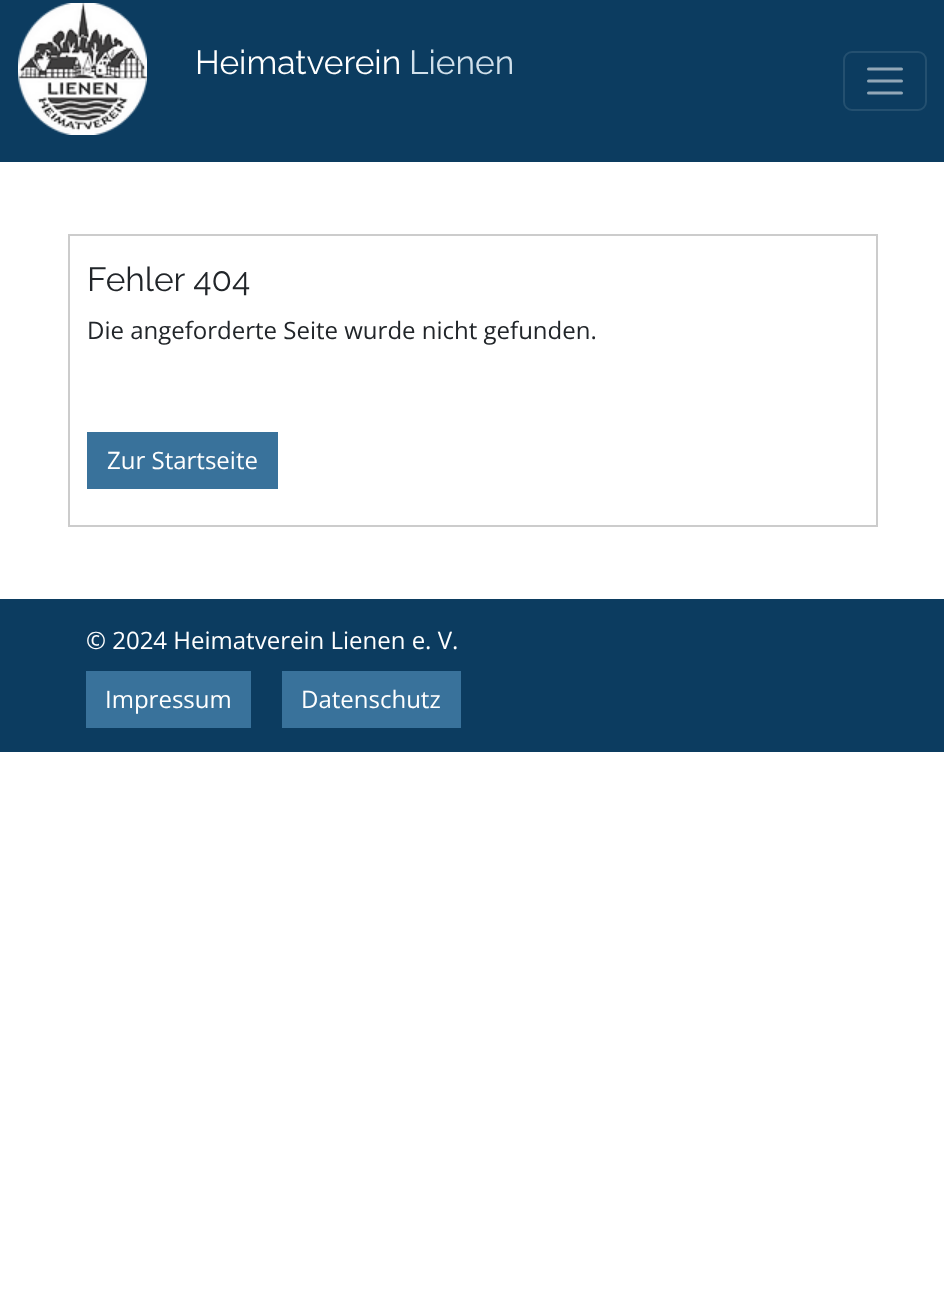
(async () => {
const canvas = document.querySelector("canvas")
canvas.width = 944
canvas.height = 1301
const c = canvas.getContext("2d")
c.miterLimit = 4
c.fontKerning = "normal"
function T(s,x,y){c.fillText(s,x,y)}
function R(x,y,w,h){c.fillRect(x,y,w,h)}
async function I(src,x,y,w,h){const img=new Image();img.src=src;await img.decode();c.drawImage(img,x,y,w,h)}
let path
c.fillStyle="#fff"
R(0,0,944,1301)
c.fillStyle="#0c3c60"
R(0,0,944,162)
await I("1.png",18,3,129,132)
c.font="100 33.5px Raleway"
c.fillStyle="#fff"
T("Heimatverein",195,74)
c.fillStyle="#d1e0eb"
T("Lienen",409,74)
c.beginPath()
c.roundRect(844,52,82,58,8)
c.strokeStyle="#245070"
c.lineWidth=2
c.stroke()
path = new Path2D("M868.5 69h33m-33 12h33m-33 12h33")
c.strokeStyle="#92a7b7"
c.lineWidth=3
c.lineCap="round"
c.stroke(path)
c.strokeStyle="#ccc"
c.lineWidth=2
c.strokeRect(69,235,808,291)
c.fillStyle="#212529"
T("Fehler 404",87,291)
c.font="24px Open Sans"
T("Die angeforderte Seite wurde nicht gefunden.",87,339)
c.fillStyle="#39729b"
R(87,432,191,57)
c.fillStyle="#fff"
T("Zur Startseite",107,469)
c.fillStyle="#0c3c60"
R(0,599,944,153)
c.fillStyle="#fff"
T("© 2024 Heimatverein Lienen e. V.",86,649)
c.fillStyle="#39729b"
R(86,671,165,57)
c.fillStyle="#fff"
T("Impressum",105,708)
c.fillStyle="#39729b"
R(282,671,179,57)
c.fillStyle="#fff"
T("Datenschutz",301,708)
})()
